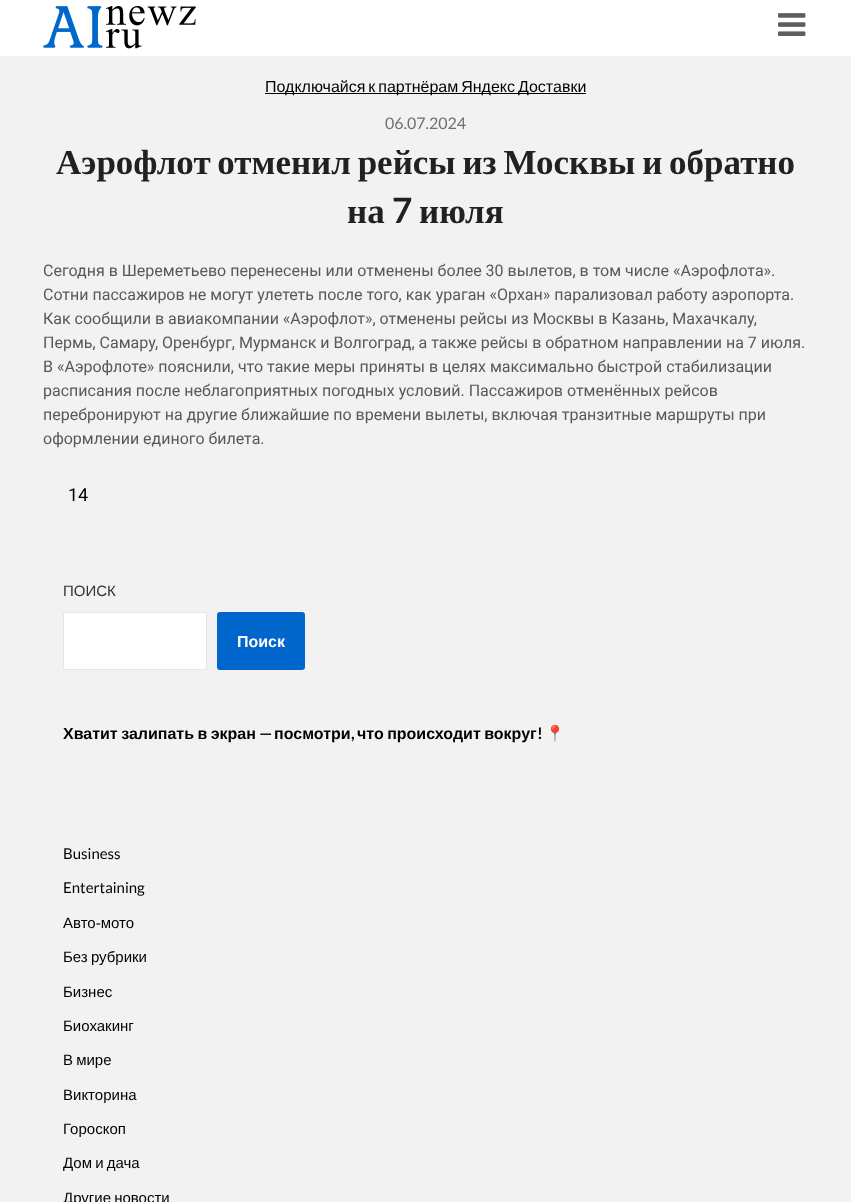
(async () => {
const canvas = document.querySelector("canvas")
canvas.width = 851
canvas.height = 1202
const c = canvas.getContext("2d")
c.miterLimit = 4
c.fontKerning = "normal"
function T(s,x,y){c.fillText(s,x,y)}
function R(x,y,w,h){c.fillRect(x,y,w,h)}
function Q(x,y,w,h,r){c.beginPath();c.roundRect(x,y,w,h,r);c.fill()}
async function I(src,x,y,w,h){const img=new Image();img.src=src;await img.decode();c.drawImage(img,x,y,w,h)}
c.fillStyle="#f2f2f2"
R(0,0,851,1202)
c.fillStyle="#fff"
R(0,0,851,56)
await I("1.png",43,6,153,43)
await I("2.png",778,13,28,23)
c.fillStyle="#000"
R(265,93,321,1)
c.wordSpacing="-1.5px"
c.font="16px Liberation Sans"
T("Подключайся к партнёрам Яндекс Доставки",265,92)
c.wordSpacing="0px"
c.font="16px Lato"
c.fillStyle="#6f6f6f"
T("06.07.2024",385,129)
c.wordSpacing="-2px"
c.font="bold 35px Liberation Serif"
c.fillStyle="#212121"
T("Аэрофлот отменил рейсы из Москвы и обратно",56,174)
c.wordSpacing="0px"
T("на",347,223)
c.font="bold 35px Lato"
T("7",392,223)
c.font="bold 35px Liberation Serif"
T("июля",419,223)
c.font="16px Roboto"
c.fillStyle="#585858"
T("Сегодня в Шереметьево перенесены или отменены более 30 вылетов, в том числе «Аэрофлота».",43,276)
T("Сотни пассажиров не могут улететь после того, как ураган «Орхан» парализовал работу аэропорта.",43,300)
T("Как сообщили в авиакомпании «Аэрофлот», отменены рейсы из Москвы в Казань, Махачкалу,",43,324)
T("Пермь, Самару, Оренбург, Мурманск и Волгоград, а также рейсы в обратном направлении на 7 июля.",43,348)
T("В «Аэрофлоте» пояснили, что такие меры приняты в целях максимально быстрой стабилизации",43,372)
T("расписания после неблагоприятных погодных условий. Пассажиров отменённых рейсов",43,396)
T("перебронируют на другие ближайшие по времени вылеты, включая транзитные маршруты при",43,420)
T("оформлении единого билета.",43,444)
c.font="18px Roboto"
c.fillStyle="#000"
T("14",68,501)
c.font="15px Liberation Sans"
c.fillStyle="#333"
T("ПОИСК",63,596)
c.fillStyle="#fff"
c.beginPath()
c.rect(63.5,612.5,143,57)
c.fill()
c.strokeStyle="#e5e6e9"
c.stroke()
c.fillStyle="#06c"
Q(217,612,88,58,3)
c.font="bold 16px Liberation Sans"
c.fillStyle="#fff"
T("Поиск",237,647)
c.wordSpacing="-1px"
c.fillStyle="#000"
T("Хватит залипать в экран",63,739)
c.wordSpacing="0px"
c.font="bold 16px Lato"
T("—",259,739)
c.font="bold 16px Liberation Sans"
T("посмотри",274,739)
c.wordSpacing="-1px"
T("что происходит вокруг",357,739)
c.wordSpacing="0px"
c.font="bold 16px Lato"
T("!",537,739)
c.font="bold 16px Noto Color Emoji"
T("📍",545,739)
c.font="bold 16px Lato"
T(",",351,739)
c.font="15px Lato"
T("Business",63,859)
T("Entertaining",63,893)
c.font="15px Liberation Sans"
T("Авто-мото",63,928)
c.wordSpacing="-1px"
T("Без рубрики",63,962)
c.wordSpacing="0px"
T("Бизнес",63,997)
T("Биохакинг",63,1031)
c.wordSpacing="-1px"
T("В мире",63,1065)
c.wordSpacing="0px"
T("Викторина",63,1100)
T("Гороскоп",63,1134)
c.wordSpacing="-1px"
T("Дом и дача",63,1168)
T("Другие новости",63,1203)
})()
